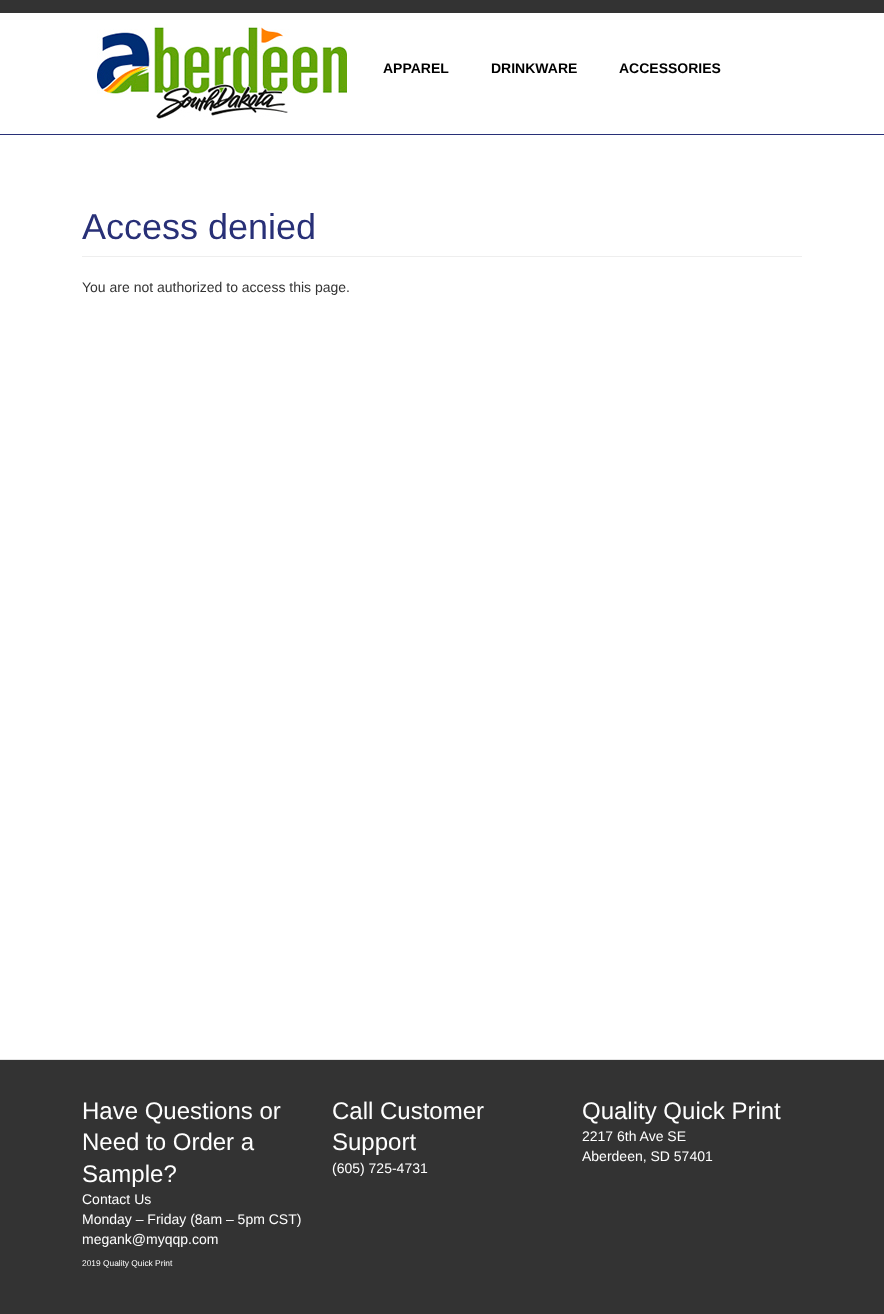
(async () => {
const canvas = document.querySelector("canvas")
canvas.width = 884
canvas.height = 1314
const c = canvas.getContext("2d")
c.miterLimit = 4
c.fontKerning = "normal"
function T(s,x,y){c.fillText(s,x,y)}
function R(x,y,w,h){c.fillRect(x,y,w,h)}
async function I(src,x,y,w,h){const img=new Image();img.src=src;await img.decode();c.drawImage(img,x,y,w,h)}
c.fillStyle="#fff"
R(0,0,884,1314)
c.fillStyle="#333"
R(0,0,884,13)
await I("1.png",97,24,250,95)
c.font="bold 14px Liberation Sans"
c.fillStyle="#000"
T("APPAREL",383,73)
T("DRINKWARE",491,73)
T("ACCESSORIES",619,73)
c.fillStyle="#283077"
R(0,134,884,1)
c.fillStyle="#eee"
R(82,256,720,1)
c.font="36px Liberation Sans"
c.fillStyle="#283077"
T("Access denied",82,239)
c.font="14px Liberation Sans"
c.fillStyle="#333"
T("You are not authorized to access this page.",82,292)
R(0,1060,884,254)
c.fillStyle="#e5e5e5"
R(0,1059,884,1)
c.font="24px Liberation Sans"
c.fillStyle="#fff"
T("Have Questions or",82,1119)
T("Need to Order a",82,1150)
T("Sample?",82,1182)
c.font="14px Liberation Sans"
T("Contact Us",82,1204)
T("Monday – Friday (8am – 5pm CST)",82,1224)
T("megank@myqqp.com",82,1244)
c.font="8.4px Liberation Sans"
T("2019 Quality Quick Print",82,1266)
c.font="24px Liberation Sans"
T("Call Customer",332,1119)
T("Support",332,1150)
c.font="14px Liberation Sans"
T("(605) 725-4731",332,1173)
c.font="24px Liberation Sans"
T("Quality Quick Print",582,1119)
c.font="14px Liberation Sans"
T("2217 6th Ave SE",582,1141)
T("Aberdeen, SD 57401",582,1161)
})()
